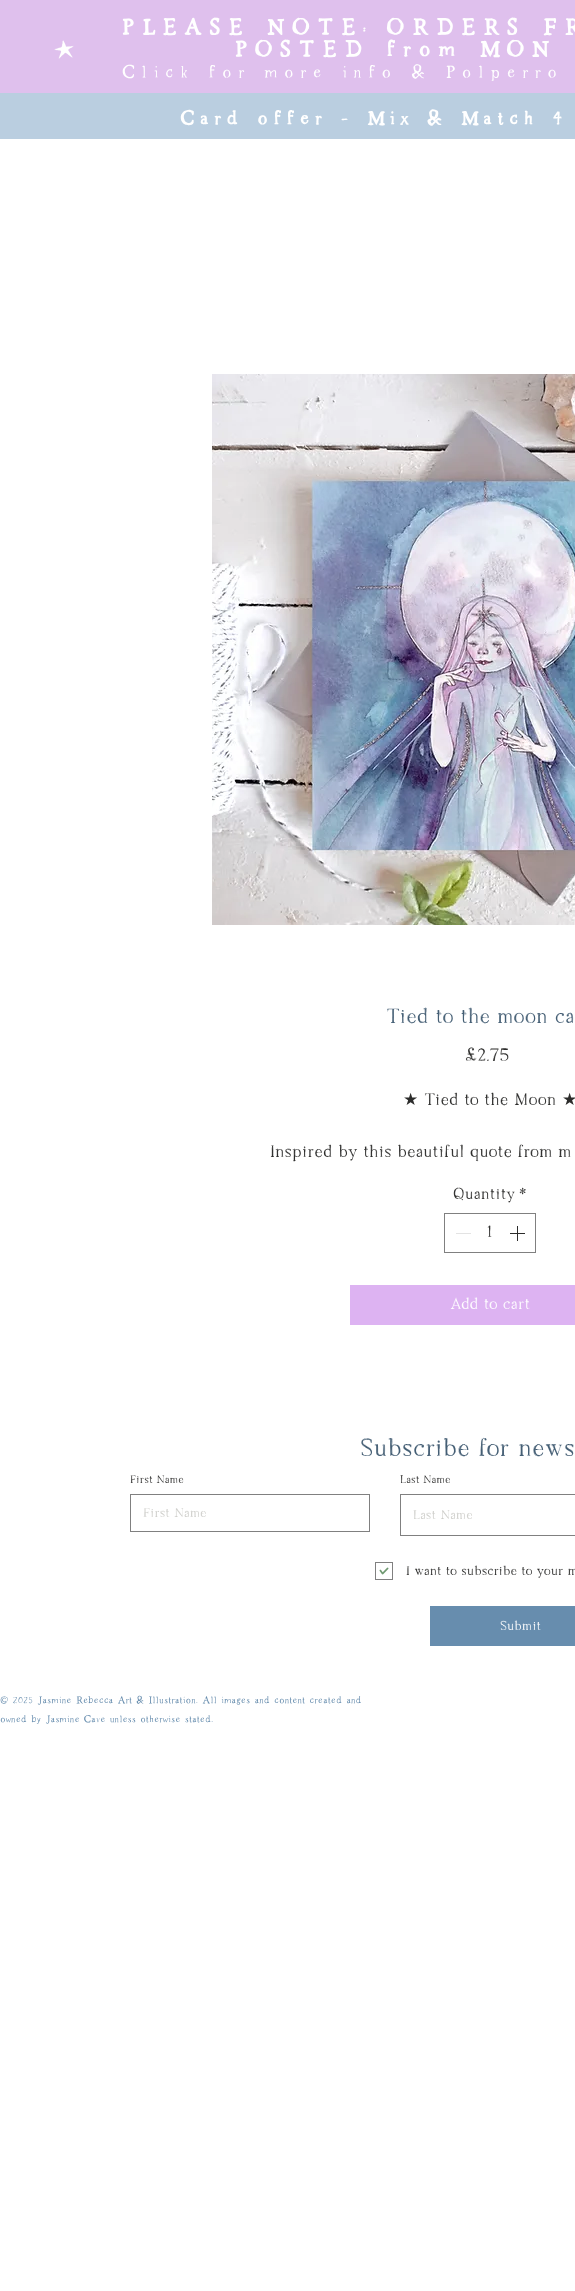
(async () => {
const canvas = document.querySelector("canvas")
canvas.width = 575
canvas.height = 2291
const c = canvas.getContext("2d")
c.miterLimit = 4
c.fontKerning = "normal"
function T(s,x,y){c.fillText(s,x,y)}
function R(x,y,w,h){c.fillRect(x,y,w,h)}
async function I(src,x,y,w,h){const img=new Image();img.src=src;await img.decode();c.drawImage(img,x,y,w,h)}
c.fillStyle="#fff"
R(0,0,575,2291)
c.fillStyle="#dfc0ed"
R(0,0,575,93)
await I("1.png",54,40,20,19)
c.letterSpacing="7.75px"
c.font="bold 31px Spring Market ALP"
c.fillStyle="#fff"
T("PLEASE NOTE",121,36)
c.letterSpacing="6.25px"
c.font="bold 25px Spring Market ALP"
T(":",362,36)
c.letterSpacing="7.75px"
c.font="bold 31px Spring Market ALP"
T("ORDERS FR",386,36)
T("POSTED from MON",234,58)
c.letterSpacing="6.25px"
c.font="25px Spring Market ALP"
T("Click for more info & Polperro",122,79)
c.fillStyle="#bacee0"
R(0,93,575,46)
c.letterSpacing="5.4px"
c.font="bold 27px Spring Market ALP"
c.fillStyle="#fff"
T("Card offer - Mix & Match 4",180,126)
await I("2.png",212,374,363,551)
c.letterSpacing="0px"
c.font="21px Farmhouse"
c.fillStyle="#445e74"
T("Tied to the moon ca",386,1023)
c.font="18px Farmhouse"
c.fillStyle="#2c2c2b"
T("£2.75",465,1061)
c.font="17px DejaVu Sans"
T("★",403,1105)
c.font="17px Farmhouse"
T("Tied to the Moon",424,1105)
c.font="17px DejaVu Sans"
T("★",562,1105)
c.font="17px Farmhouse"
T("Inspired by this beautiful quote from m",270,1157)
c.font="16px Farmhouse"
T("Quantity",453,1199)
T("*",519,1199)
c.strokeStyle="#808080"
c.strokeRect(444.5,1213.5,91,39)
c.fillStyle="#e3e3e3"
R(456,1233,15,1)
c.fillStyle="#2c2c2b"
T("1",487,1237)
await I("3.png",510,1226,15,15)
c.fillStyle="#ddb3f2"
R(350,1285,225,40)
c.fillStyle="#fff"
T("Add to cart",450,1309)
c.font="25px Farmhouse"
c.fillStyle="#445e74"
T("Subscribe for news",360,1456)
c.font="11px Farmhouse"
c.fillStyle="#2c2c2b"
T("First Name",130,1483)
c.strokeRect(130.5,1494.5,239,37)
c.font="13px Farmhouse"
c.fillStyle="#cdcdc9"
T("First Name",143,1517)
c.font="11px Farmhouse"
c.fillStyle="#2c2c2b"
T("Last Name",400,1483)
c.strokeRect(400.5,1494.5,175,41)
c.font="13px Farmhouse"
c.fillStyle="#cdcdc9"
T("Last Name",413,1519)
c.strokeRect(375.5,1562.5,17,17)
c.fillStyle="#2c2c2b"
T("I want to subscribe to your m",406,1575)
await I("4.png",379,1567,10,8)
c.fillStyle="#678dae"
R(430,1606,145,40)
c.fillStyle="#fff"
T("Submit",500,1630)
c.font="14px Spring Market ALP"
c.fillStyle="#678dae"
T("© 2025 Jasmine Rebecca Art & Illustration. All images and content created and",0,1704)
T("owned by Jasmine Cave unless otherwise stated.",0,1723)
})()
